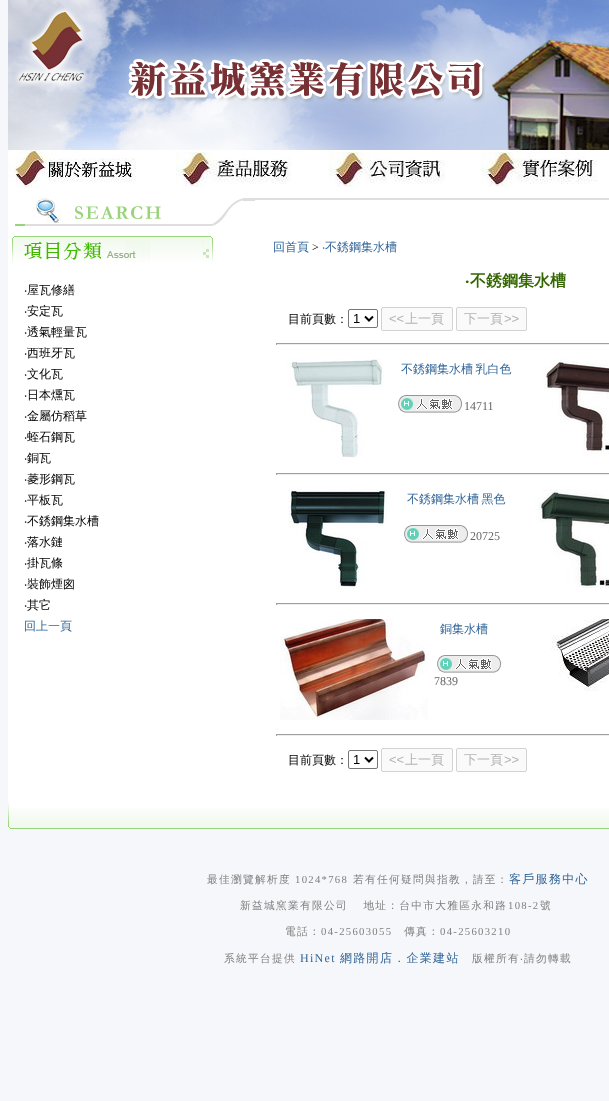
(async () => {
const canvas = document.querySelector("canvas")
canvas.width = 609
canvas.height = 1101
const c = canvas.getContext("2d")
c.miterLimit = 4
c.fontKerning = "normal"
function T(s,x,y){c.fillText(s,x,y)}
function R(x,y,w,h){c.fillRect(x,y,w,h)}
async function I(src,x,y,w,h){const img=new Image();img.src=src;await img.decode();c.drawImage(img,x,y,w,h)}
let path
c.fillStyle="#f6f7fa"
R(0,0,609,1101)
c.fillStyle="#fff"
R(8,150,601,679)
await I("1.png",8,0,601,150)
await I("2.png",8,150,128,38)
await I("3.png",176,152,115,35)
await I("4.png",329,152,116,35)
await I("5.png",481,152,116,35)
await I("6.png",15,198,228,28)
c.fillStyle="#dedede"
R(243,198,12,3)
R(255,198,354,2)
await I("7.png",12,236,201,28)
c.font="12px Noto Sans"
c.fillStyle="#000"
T("‧",24,294)
c.font="500 12px WenQuanYi Zen Hei"
T("屋瓦修繕",27,294)
c.font="12px Noto Sans"
T("‧",24,315)
c.font="500 12px WenQuanYi Zen Hei"
T("安定瓦",27,315)
c.font="12px Noto Sans"
T("‧",24,336)
c.font="500 12px WenQuanYi Zen Hei"
T("透氣輕量瓦",27,336)
c.font="12px Noto Sans"
T("‧",24,357)
c.font="500 12px WenQuanYi Zen Hei"
T("西班牙瓦",27,357)
c.font="12px Noto Sans"
T("‧",24,378)
c.font="500 12px WenQuanYi Zen Hei"
T("文化瓦",27,378)
c.font="12px Noto Sans"
T("‧",24,399)
c.font="500 12px WenQuanYi Zen Hei"
T("日本燻瓦",27,399)
c.font="12px Noto Sans"
T("‧",24,420)
c.font="500 12px WenQuanYi Zen Hei"
T("金屬仿稻草",27,420)
c.font="12px Noto Sans"
T("‧",24,441)
c.font="500 12px WenQuanYi Zen Hei"
T("蛭石鋼瓦",27,441)
c.font="12px Noto Sans"
T("‧",24,462)
c.font="500 12px WenQuanYi Zen Hei"
T("銅瓦",27,462)
c.font="12px Noto Sans"
T("‧",24,483)
c.font="500 12px WenQuanYi Zen Hei"
T("菱形鋼瓦",27,483)
c.font="12px Noto Sans"
T("‧",24,504)
c.font="500 12px WenQuanYi Zen Hei"
T("平板瓦",27,504)
c.font="12px Noto Sans"
T("‧",24,525)
c.font="500 12px WenQuanYi Zen Hei"
T("不銹鋼集水槽",27,525)
c.font="12px Noto Sans"
T("‧",24,546)
c.font="500 12px WenQuanYi Zen Hei"
T("落水鏈",27,546)
c.font="12px Noto Sans"
T("‧",24,567)
c.font="500 12px WenQuanYi Zen Hei"
T("掛瓦條",27,567)
c.font="12px Noto Sans"
T("‧",24,588)
c.font="500 12px WenQuanYi Zen Hei"
T("裝飾煙囪",27,588)
c.font="12px Noto Sans"
T("‧",24,609)
c.font="500 12px WenQuanYi Zen Hei"
T("其它",27,609)
c.fillStyle="#369"
T("回上一頁",24,630)
T("回首頁",273,251)
c.font="12px Liberation Serif"
c.fillStyle="#000"
T(">",312,251)
c.font="12px Noto Sans"
c.fillStyle="#369"
T("‧",322,251)
c.font="500 12px WenQuanYi Zen Hei"
T("不銹鋼集水槽",325,251)
c.font="bold 16px Noto Sans"
c.fillStyle="#360"
T("‧",465,286)
c.font="bold 16px WenQuanYi Zen Hei"
T("不銹鋼集水槽",470,286)
c.font="500 12px WenQuanYi Zen Hei"
c.fillStyle="#000"
T("目前頁數：",288,323)
c.beginPath()
c.roundRect(348.5,309.5,29,18,1.5)
c.strokeStyle="#767676"
c.stroke()
path = new Path2D("M365 316.5l4 4l4-4")
c.strokeStyle="#000"
c.lineWidth=2
c.stroke(path)
c.font="13px Liberation Sans"
T("1",353,323)
c.fillStyle="#fafafa"
c.beginPath()
c.roundRect(381.5,307.5,71,23,1.5)
c.fill()
c.strokeStyle="#d2d2d2"
c.lineWidth=1
c.stroke()
c.fillStyle="#b4b4b4"
T("<<",389,323)
c.font="500 13px WenQuanYi Zen Hei"
T("上一頁",405,323)
c.fillStyle="#fafafa"
c.beginPath()
c.roundRect(456.5,307.5,70,23,1.5)
c.fill()
c.stroke()
c.fillStyle="#b4b4b4"
T("下一頁",464,323)
c.font="13px Liberation Sans"
T(">>",504,323)
c.fillStyle="#9f9f9f"
R(276,343,333,1)
c.fillStyle="#eee"
R(276,344,333,1)
c.fillStyle="#9f9f9f"
R(276,343,1,2)
await I("8.png",287,359,97,100)
c.wordSpacing="-1px"
c.font="500 12px WenQuanYi Zen Hei"
c.fillStyle="#369"
T("不銹鋼集水槽 乳白色",401,373)
await I("9.png",398,395,65,18)
c.wordSpacing="0px"
c.font="12px Liberation Serif"
c.fillStyle="#666"
T("14711",464,410)
await I("10.png",543,359,66,95)
c.fillStyle="#9f9f9f"
R(276,473,333,1)
c.fillStyle="#eee"
R(276,474,333,1)
c.fillStyle="#9f9f9f"
R(276,473,1,2)
await I("11.png",288,489,99,100)
c.wordSpacing="-1px"
c.font="500 12px WenQuanYi Zen Hei"
c.fillStyle="#369"
T("不銹鋼集水槽 黑色",407,503)
await I("9.png",404,525,65,18)
c.wordSpacing="0px"
c.font="12px Liberation Serif"
c.fillStyle="#666"
T("20725",470,540)
await I("12.png",535,489,74,99)
c.fillStyle="#9f9f9f"
R(276,603,333,1)
c.fillStyle="#eee"
R(276,604,333,1)
c.fillStyle="#9f9f9f"
R(276,603,1,2)
await I("13.png",280,619,148,101)
c.font="500 12px WenQuanYi Zen Hei"
c.fillStyle="#369"
T("銅集水槽",440,633)
await I("9.png",437,655,65,18)
c.font="12px Liberation Serif"
c.fillStyle="#666"
T("7839",434,685)
await I("14.png",551,619,58,72)
c.fillStyle="#9f9f9f"
R(276,734,333,1)
c.fillStyle="#eee"
R(276,735,333,1)
c.fillStyle="#9f9f9f"
R(276,734,1,2)
c.font="500 12px WenQuanYi Zen Hei"
c.fillStyle="#000"
T("目前頁數：",288,764)
c.beginPath()
c.roundRect(348.5,750.5,29,18,1.5)
c.strokeStyle="#767676"
c.stroke()
path = new Path2D("M365 757.5l4 4l4-4")
c.strokeStyle="#000"
c.lineWidth=2
c.stroke(path)
c.font="13px Liberation Sans"
T("1",353,764)
c.fillStyle="#fafafa"
c.beginPath()
c.roundRect(381.5,748.5,71,23,1.5)
c.fill()
c.strokeStyle="#d2d2d2"
c.lineWidth=1
c.stroke()
c.fillStyle="#b4b4b4"
T("<<",389,764)
c.font="500 13px WenQuanYi Zen Hei"
T("上一頁",405,764)
c.fillStyle="#fafafa"
c.beginPath()
c.roundRect(456.5,748.5,70,23,1.5)
c.fill()
c.stroke()
c.fillStyle="#b4b4b4"
T("下一頁",464,764)
c.font="13px Liberation Sans"
T(">>",504,764)
await I("15.png",8,801,2,27)
await I("16.png",10,808,599,21)
c.letterSpacing="1.3px"
c.font="500 10.7px WenQuanYi Zen Hei"
c.fillStyle="#808080"
T("最佳瀏覽解析度",207,883)
c.font="10.7px Liberation Serif"
T("1024*768",295,883)
c.font="500 10.7px WenQuanYi Zen Hei"
T("若有任何疑問與指教，請至：",353,883)
c.font="500 12px WenQuanYi Zen Hei"
c.fillStyle="#369"
T("客戶服務中心",509,883)
c.wordSpacing="-1px"
c.font="500 10.7px WenQuanYi Zen Hei"
c.fillStyle="#808080"
T("新益城窯業有限公司 　地址：台中市大雅區永和路",240,909)
c.wordSpacing="0px"
c.font="10.7px Liberation Serif"
T("108-2",508,909)
c.font="500 10.7px WenQuanYi Zen Hei"
T("號",540,909)
T("電話：",285,935)
c.font="10.7px Liberation Serif"
T("04-25603055",321,935)
c.font="500 10.7px WenQuanYi Zen Hei"
T("傳真：",404,935)
c.font="10.7px Liberation Serif"
T("04-25603210",440,935)
c.font="500 10.7px WenQuanYi Zen Hei"
T("系統平台提供",224,962)
c.font="12px Liberation Serif"
c.fillStyle="#369"
T("HiNet",300,962)
c.font="500 12px WenQuanYi Zen Hei"
T("網路開店．企業建站",340,962)
c.font="500 10.7px WenQuanYi Zen Hei"
c.fillStyle="#808080"
T("版權所有",472,962)
c.font="10.7px Noto Sans"
T("‧",520,962)
c.font="500 10.7px WenQuanYi Zen Hei"
T("請勿轉載",524,962)
})()
